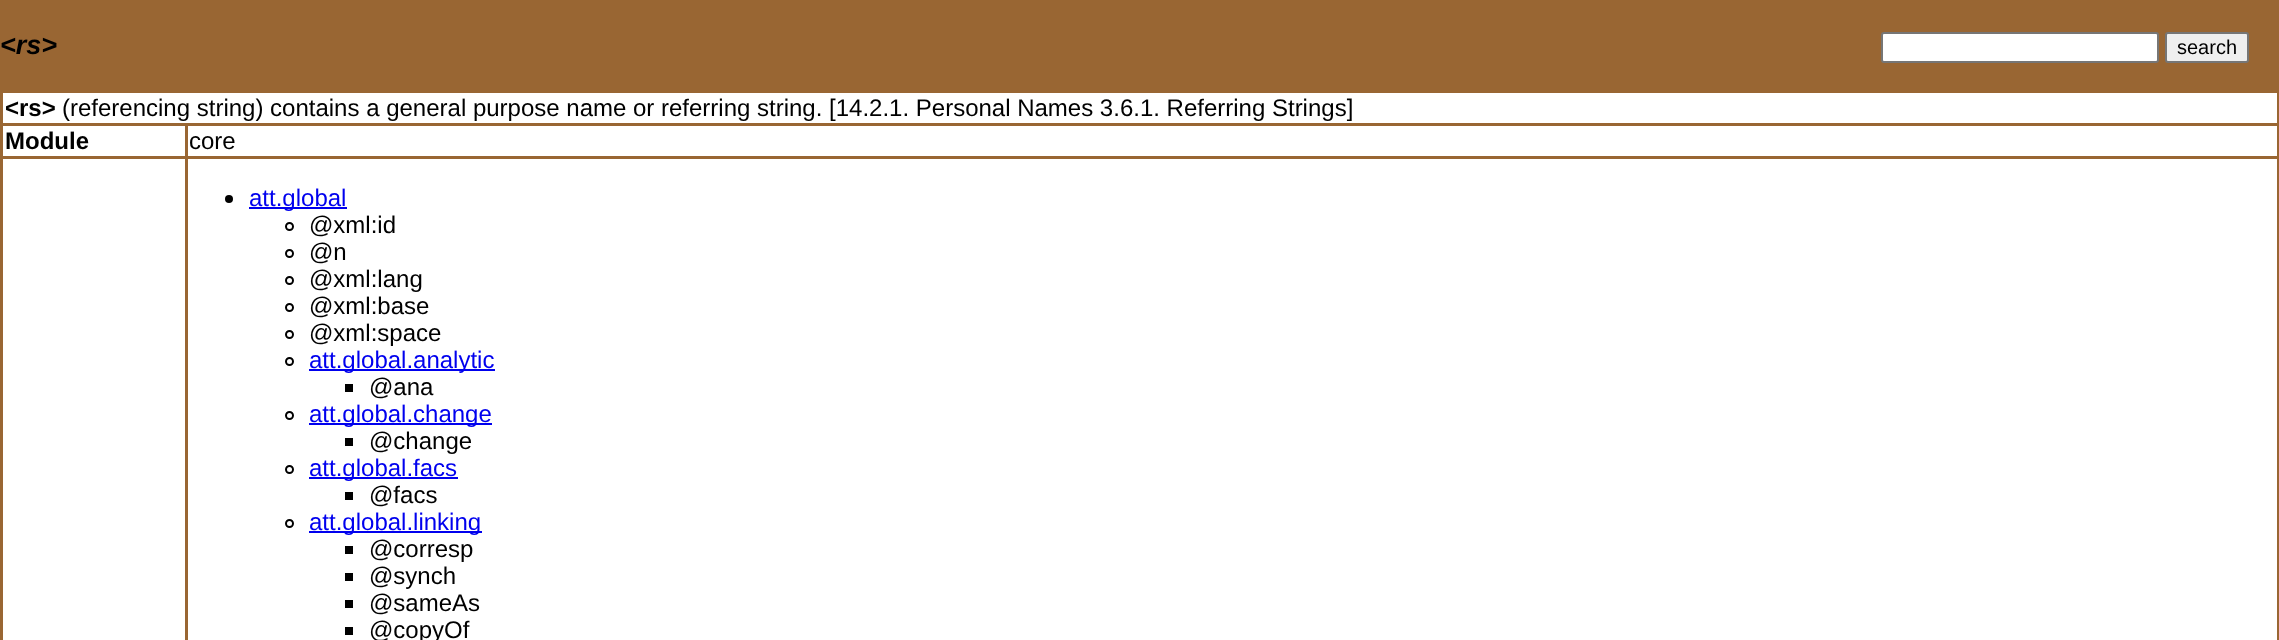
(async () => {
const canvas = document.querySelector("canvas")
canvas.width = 2279
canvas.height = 640
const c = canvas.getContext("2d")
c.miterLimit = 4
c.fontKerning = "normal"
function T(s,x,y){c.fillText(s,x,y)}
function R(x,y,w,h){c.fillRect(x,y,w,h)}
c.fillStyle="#963"
R(0,0,2279,640)
c.font="italic bold 27px Liberation Sans"
c.fillStyle="#000"
T("<rs>",0,54)
c.fillStyle="#fff"
R(3,93,2274,30)
c.font="bold 24px Liberation Sans"
c.fillStyle="#000"
T("<rs>",5,116)
c.font="24px Liberation Sans"
T("(referencing string) contains a general purpose name or referring string. [14.2.1. Personal Names 3.6.1. Referring Strings]",62,116)
c.fillStyle="#fff"
R(3,126,182,30)
c.font="bold 24px Liberation Sans"
c.fillStyle="#000"
T("Module",5,149)
c.fillStyle="#fff"
R(188,126,2089,30)
c.font="24px Liberation Sans"
c.fillStyle="#000"
T("core",189,149)
c.fillStyle="#fff"
R(3,159,182,481)
R(188,159,2089,481)
c.fillStyle="#000"
c.beginPath()
c.arc(229,199,4,0,7)
c.fill()
c.fillStyle="#00e"
R(249,207,98,2)
T("att.global",249,206)
c.beginPath()
c.arc(289.5,226.5,3.5,0,7)
c.strokeStyle="#000"
c.lineWidth=2
c.stroke()
c.fillStyle="#000"
T("@xml:id",309,233)
c.beginPath()
c.arc(289.5,253.5,3.5,0,7)
c.stroke()
T("@n",309,260)
c.beginPath()
c.arc(289.5,280.5,3.5,0,7)
c.stroke()
T("@xml:lang",309,287)
c.beginPath()
c.arc(289.5,307.5,3.5,0,7)
c.stroke()
T("@xml:base",309,314)
c.beginPath()
c.arc(289.5,334.5,3.5,0,7)
c.stroke()
T("@xml:space",309,341)
c.beginPath()
c.arc(289.5,361.5,3.5,0,7)
c.stroke()
c.fillStyle="#00e"
R(309,369,186,2)
T("att.global.analytic",309,368)
c.fillStyle="#000"
R(345,384,8,8)
T("@ana",369,395)
c.beginPath()
c.arc(289.5,415.5,3.5,0,7)
c.stroke()
c.fillStyle="#00e"
R(309,423,183,2)
T("att.global.change",309,422)
c.fillStyle="#000"
R(345,438,8,8)
T("@change",369,449)
c.beginPath()
c.arc(289.5,469.5,3.5,0,7)
c.stroke()
c.fillStyle="#00e"
R(309,477,149,2)
T("att.global.facs",309,476)
c.fillStyle="#000"
R(345,492,8,8)
T("@facs",369,503)
c.beginPath()
c.arc(289.5,523.5,3.5,0,7)
c.stroke()
c.fillStyle="#00e"
R(309,531,173,2)
T("att.global.linking",309,530)
c.fillStyle="#000"
R(345,546,8,8)
T("@corresp",369,557)
R(345,573,8,8)
T("@synch",369,584)
R(345,600,8,8)
T("@sameAs",369,611)
R(345,627,8,8)
T("@copyOf",369,638)
c.fillStyle="#fff"
c.beginPath()
c.roundRect(1882,33,276,29,2)
c.fill()
c.strokeStyle="#767676"
c.stroke()
c.fillStyle="#efefef"
c.beginPath()
c.roundRect(2166,33,82,29,2)
c.fill()
c.stroke()
c.font="20px Liberation Sans"
c.fillStyle="#000"
T("search",2177,54)
})()
